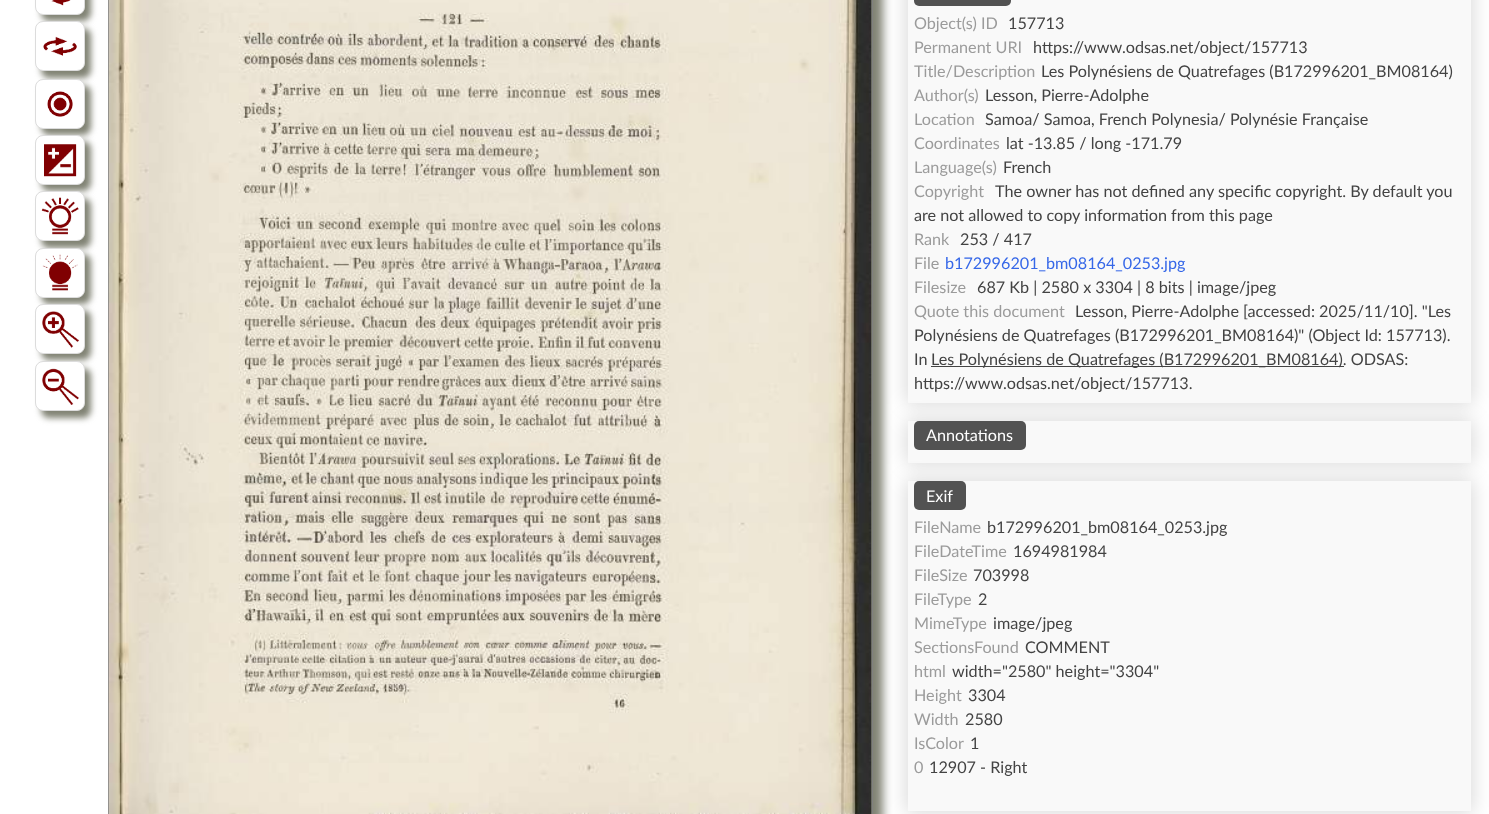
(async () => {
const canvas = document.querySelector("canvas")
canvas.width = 1489
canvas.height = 814
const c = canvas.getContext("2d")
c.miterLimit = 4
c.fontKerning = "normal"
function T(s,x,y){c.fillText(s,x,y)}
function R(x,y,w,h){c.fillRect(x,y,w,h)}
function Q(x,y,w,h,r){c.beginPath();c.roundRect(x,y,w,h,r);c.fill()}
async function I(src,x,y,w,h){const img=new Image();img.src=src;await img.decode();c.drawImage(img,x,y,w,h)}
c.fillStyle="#fff"
R(0,0,1489,814)
c.fillStyle="#818374"
c.filter="blur(3px)"
c.beginPath()
c.roundRect(41,-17,50,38,8)
c.fill()
c.filter="none"
c.fillStyle="#fff"
c.beginPath()
c.roundRect(35.5,-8.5,49,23,7.5)
c.fill()
c.strokeStyle="#dcdcdc"
c.stroke()
await I("1.png",51,0,20,6)
c.fillStyle="#818374"
c.filter="blur(3px)"
c.beginPath()
c.roundRect(41,28,50,50,8)
c.fill()
c.filter="none"
c.fillStyle="#fff"
c.beginPath()
c.roundRect(35.5,21.5,49,49,7.5)
c.fill()
c.stroke()
await I("2.png",43,36,34,20)
c.fillStyle="#818374"
c.filter="blur(3px)"
c.beginPath()
c.roundRect(41,85,50,50,8)
c.fill()
c.filter="none"
c.fillStyle="#fff"
c.beginPath()
c.roundRect(35.5,79.5,49,49,7.5)
c.fill()
c.stroke()
await I("3.png",47,91,26,26)
c.fillStyle="#818374"
c.filter="blur(3px)"
c.beginPath()
c.roundRect(41,141,50,50,8)
c.fill()
c.filter="none"
c.fillStyle="#fff"
c.beginPath()
c.roundRect(35.5,135.5,49,49,7.5)
c.fill()
c.stroke()
await I("4.png",44,144,33,33)
c.fillStyle="#818374"
c.filter="blur(3px)"
c.beginPath()
c.roundRect(41,198,50,50,8)
c.fill()
c.filter="none"
c.fillStyle="#fff"
c.beginPath()
c.roundRect(35.5,191.5,49,49,7.5)
c.fill()
c.stroke()
await I("5.png",41,197,38,38)
c.fillStyle="#818374"
c.filter="blur(3px)"
c.beginPath()
c.roundRect(41,254,50,50,8)
c.fill()
c.filter="none"
c.fillStyle="#fff"
c.beginPath()
c.roundRect(35.5,248.5,49,49,7.5)
c.fill()
c.stroke()
await I("6.png",42,254,36,37)
c.fillStyle="#818374"
c.filter="blur(3px)"
c.beginPath()
c.roundRect(41,310,50,50,8)
c.fill()
c.filter="none"
c.fillStyle="#fff"
c.beginPath()
c.roundRect(35.5,304.5,49,49,7.5)
c.fill()
c.stroke()
await I("7.png",42,311,37,37)
c.fillStyle="#818374"
c.filter="blur(3px)"
c.beginPath()
c.roundRect(41,368,50,50,8)
c.fill()
c.filter="none"
c.fillStyle="#fff"
c.beginPath()
c.roundRect(35.5,361.5,49,49,7.5)
c.fill()
c.stroke()
await I("8.png",42,368,37,37)
c.fillStyle="#818374"
c.filter="blur(5px)"
c.beginPath()
c.rect(118,-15,765,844)
c.fill()
c.filter="none"
c.strokeStyle="#808080"
c.strokeRect(108.5,-.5,764,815)
await I("9.png",108,0,764,814)
c.fillStyle="#00000026"
c.filter="blur(9.5px)"
c.beginPath()
c.rect(906,-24,567,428)
c.fill()
c.filter="none"
c.fillStyle="#f9f9f9"
R(908,0,563,403)
c.fillStyle="#525252"
Q(914,-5,97,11,5)
c.font="16.2px Lato"
c.fillStyle="#9b9b9b"
T("Object(s) ID",914,29)
c.fillStyle="#434343"
T("157713",1008,29)
c.fillStyle="#9b9b9b"
T("Permanent URI",914,53)
c.fillStyle="#434343"
T("https://www.odsas.net/object/157713",1033,53)
c.fillStyle="#9b9b9b"
T("Title/Description",914,77)
c.fillStyle="#434343"
T("Les Polynésiens de Quatrefages (B172996201_BM08164)",1041,77)
c.fillStyle="#9b9b9b"
T("Author(s)",914,101)
c.fillStyle="#434343"
T("Lesson, Pierre-Adolphe",985,101)
c.fillStyle="#9b9b9b"
T("Location",914,125)
c.fillStyle="#434343"
T("Samoa/ Samoa, French Polynesia/ Polynésie Française",985,125)
c.fillStyle="#9b9b9b"
T("Coordinates",914,149)
c.fillStyle="#434343"
T("lat -13.85 / long -171.79",1006,149)
c.fillStyle="#9b9b9b"
T("Language(s)",914,173)
c.fillStyle="#434343"
T("French",1003,173)
c.fillStyle="#9b9b9b"
T("Copyright",914,197)
c.fillStyle="#434343"
T("The owner has not defined any specific copyright. By default you",995,197)
T("are not allowed to copy information from this page",914,221)
c.fillStyle="#9b9b9b"
T("Rank",914,245)
c.fillStyle="#434343"
T("253 / 417",960,245)
c.fillStyle="#9b9b9b"
T("File",914,269)
c.fillStyle="#3567e8"
T("b172996201_bm08164_0253.jpg",945,269)
c.fillStyle="#9b9b9b"
T("Filesize",914,293)
c.fillStyle="#434343"
T("687 Kb | 2580 x 3304 | 8 bits | image/jpeg",977,293)
c.fillStyle="#9b9b9b"
T("Quote this document",914,317)
c.fillStyle="#434343"
T("Lesson, Pierre-Adolphe [accessed: 2025/11/10]. \"Les",1075,317)
T("Polynésiens de Quatrefages (B172996201_BM08164)\" (Object Id: 157713).",914,341)
T("In",914,365)
R(931,366,413,1)
T("Les Polynésiens de Quatrefages (B172996201_BM08164). ODSAS:",931,365)
c.fillStyle="#00000026"
c.filter="blur(9.5px)"
c.beginPath()
c.rect(906,420,567,44)
c.fill()
c.filter="none"
c.fillStyle="#434343"
T("https://www.odsas.net/object/157713.",914,389)
c.fillStyle="#f9f9f9"
R(908,421,563,42)
c.fillStyle="#525252"
Q(914,421,112,29,5)
c.fillStyle="#fff"
T("Annotations",926,441)
c.fillStyle="#00000026"
c.filter="blur(9.5px)"
c.beginPath()
c.rect(906,480,567,333)
c.fill()
c.filter="none"
c.fillStyle="#f9f9f9"
R(908,481,563,330)
c.fillStyle="#525252"
Q(914,481,52,29,5)
c.fillStyle="#fff"
T("Exif",926,502)
c.fillStyle="#9b9b9b"
T("FileName",914,533)
c.fillStyle="#434343"
T("b172996201_bm08164_0253.jpg",987,533)
c.fillStyle="#9b9b9b"
T("FileDateTime",914,557)
c.fillStyle="#434343"
T("1694981984",1013,557)
c.fillStyle="#9b9b9b"
T("FileSize",914,581)
c.fillStyle="#434343"
T("703998",973,581)
c.fillStyle="#9b9b9b"
T("FileType",914,605)
c.fillStyle="#434343"
T("2",978,605)
c.fillStyle="#9b9b9b"
T("MimeType",914,629)
c.fillStyle="#434343"
T("image/jpeg",993,629)
c.fillStyle="#9b9b9b"
T("SectionsFound",914,653)
c.fillStyle="#434343"
T("COMMENT",1025,653)
c.fillStyle="#9b9b9b"
T("html",914,677)
c.fillStyle="#434343"
T("width=\"2580\" height=\"3304\"",952,677)
c.fillStyle="#9b9b9b"
T("Height",914,701)
c.fillStyle="#434343"
T("3304",968,701)
c.fillStyle="#9b9b9b"
T("Width",914,725)
c.fillStyle="#434343"
T("2580",965,725)
c.fillStyle="#9b9b9b"
T("IsColor",914,749)
c.fillStyle="#434343"
T("1",970,749)
c.fillStyle="#9b9b9b"
T("0",914,773)
c.fillStyle="#434343"
T("12907 - Right",929,773)
})()
